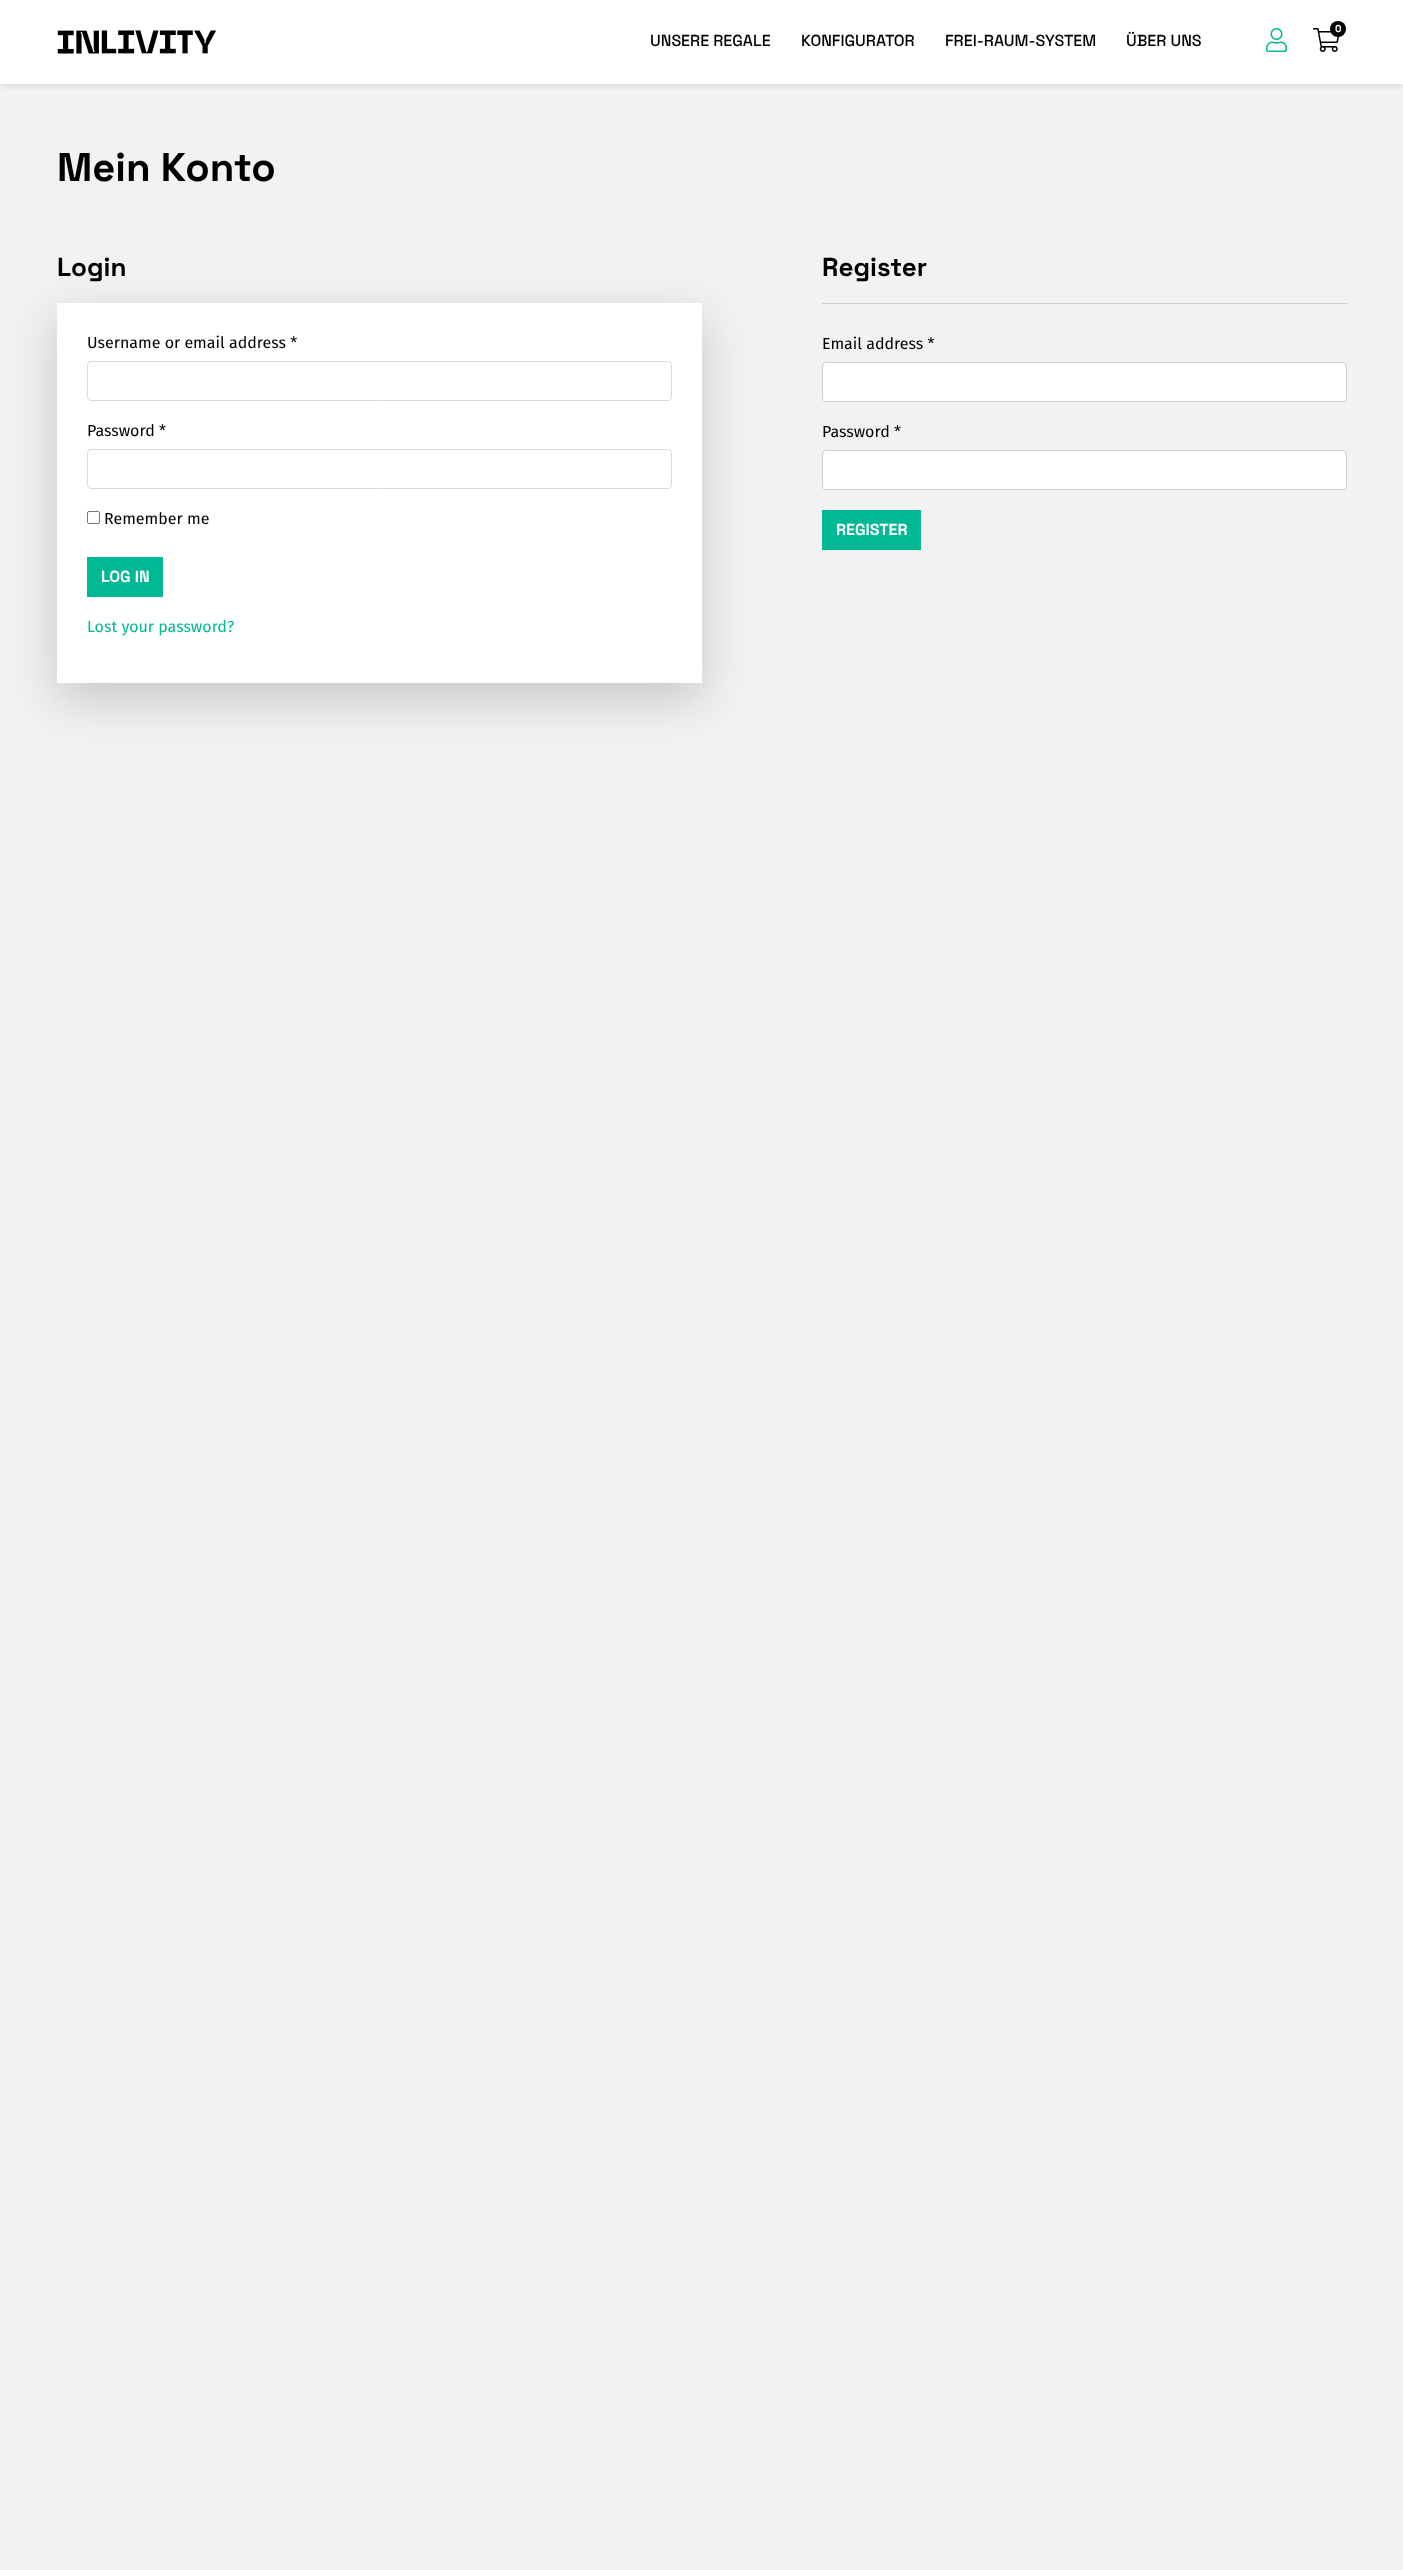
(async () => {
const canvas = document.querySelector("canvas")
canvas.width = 1403
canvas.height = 2570
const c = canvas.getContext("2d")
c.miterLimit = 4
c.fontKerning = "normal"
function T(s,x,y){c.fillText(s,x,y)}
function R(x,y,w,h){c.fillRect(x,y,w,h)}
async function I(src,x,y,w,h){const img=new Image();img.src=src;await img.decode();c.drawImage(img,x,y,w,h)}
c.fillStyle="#fff"
R(0,0,1403,2570)
c.fillStyle="#f2f2f2"
R(0,84,1403,2486)
c.save()
c.beginPath()
c.rect(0,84,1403,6)
c.clip()
c.fillStyle="#00000026"
c.filter="blur(5px)"
c.beginPath()
c.rect(0,0,1403,84)
c.fill()
c.filter="none"
c.restore()
await I("1.png",1266,28,21,24)
await I("2.png",1313,28,27,24)
c.fillStyle="#000"
c.beginPath()
c.arc(1338,29,8,0,7)
c.fill()
c.font="300 10px Space Grotesk"
c.fillStyle="#fff"
T("0",1335,32)
await I("3.png",57,30,160,24)
c.font="300 16px 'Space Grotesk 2'"
c.fillStyle="#000"
T("UNSERE REGALE",650,46)
T("KONFIGURATOR",801,46)
T("FREI-RAUM-SYSTEM",945,46)
T("ÜBER UNS",1126,46)
c.font="300 40px Space Grotesk"
T("Mein Konto",57,181)
c.fillStyle="#0000002e"
c.filter="blur(24px)"
c.beginPath()
c.rect(57,319,645,380)
c.fill()
c.filter="none"
c.font="300 26px Space Grotesk"
c.fillStyle="#000"
T("Login",57,276)
c.fillStyle="#fff"
R(57,303,645,380)
c.font="16px Fira Sans"
c.fillStyle="#000"
T("Username or email address *",87,348)
c.beginPath()
c.roundRect(87.5,361.5,584,39,3.5)
c.strokeStyle="#d9d9d9"
c.stroke()
T("Password *",87,436)
c.beginPath()
c.roundRect(87.5,449.5,584,39,3.5)
c.stroke()
c.beginPath()
c.roundRect(87.5,511.5,12,12,1.5)
c.strokeStyle="#767676"
c.stroke()
T("Remember me",104,524)
c.fillStyle="#01b894"
R(87,557,76,40)
c.font="300 16px Space Grotesk"
c.fillStyle="#fff"
T("LOG IN",101,582)
c.font="16px Fira Sans"
c.fillStyle="#01b894"
T("Lost your password?",87,632)
c.font="300 26px Space Grotesk"
c.fillStyle="#000"
T("Register",822,276)
c.fillStyle="#cecece"
R(822,303,525,1)
c.font="16px Fira Sans"
c.fillStyle="#000"
T("Email address *",822,349)
c.fillStyle="#fff"
c.beginPath()
c.roundRect(822.5,362.5,524,39,3.5)
c.fill()
c.strokeStyle="#cecece"
c.stroke()
c.fillStyle="#000"
T("Password *",822,437)
c.fillStyle="#fff"
c.beginPath()
c.roundRect(822.5,450.5,524,39,3.5)
c.fill()
c.stroke()
c.fillStyle="#01b894"
R(822,510,99,40)
c.font="300 16px Space Grotesk"
c.fillStyle="#fff"
T("REGISTER",836,535)
})()
